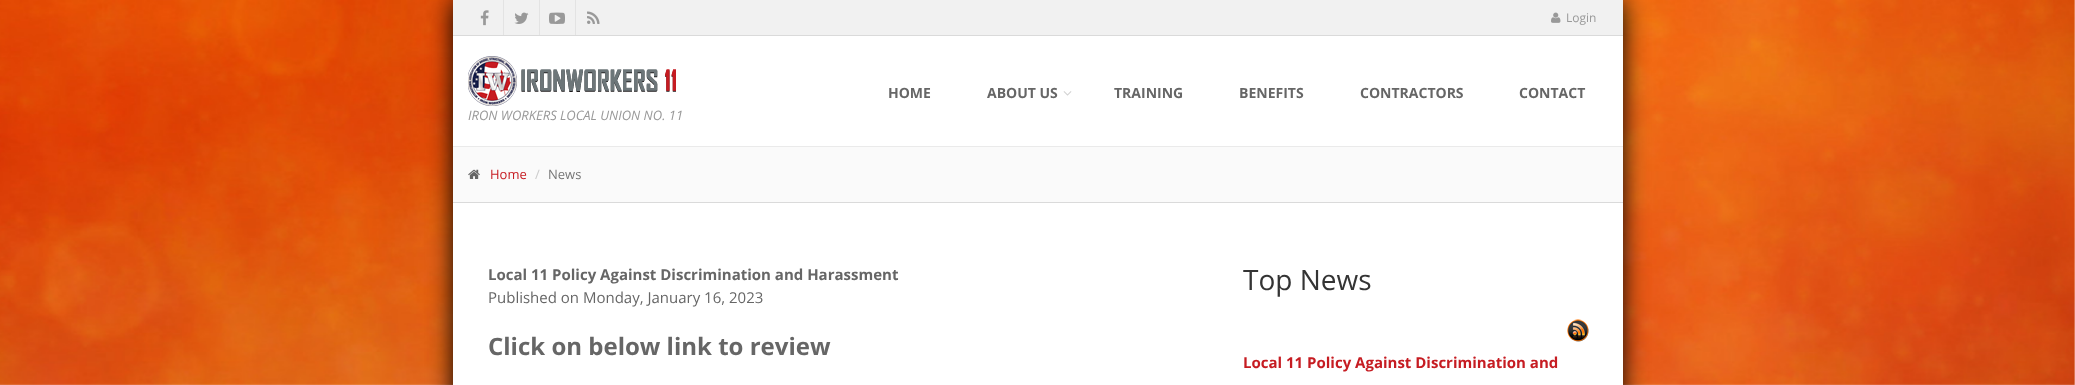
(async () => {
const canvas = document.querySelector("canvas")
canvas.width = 2075
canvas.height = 385
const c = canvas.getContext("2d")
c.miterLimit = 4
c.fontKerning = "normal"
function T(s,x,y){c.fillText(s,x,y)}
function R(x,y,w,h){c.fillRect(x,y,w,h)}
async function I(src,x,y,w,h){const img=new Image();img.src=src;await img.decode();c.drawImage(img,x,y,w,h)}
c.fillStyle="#fff"
R(0,0,2075,385)
await I("1.png",0,0,2075,385)
c.fillStyle="#000"
c.filter="blur(12.5px)"
c.beginPath()
c.rect(453,0,1170,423)
c.fill()
c.filter="none"
c.fillStyle="#fff"
R(453,36,1170,349)
c.fillStyle="#f1f1f1"
R(453,0,1170,35)
c.fillStyle="#dadada"
R(453,35,1170,1)
c.fillStyle="#e3e3e3"
R(503,0,1,35)
await I("2.png",480,10,9,16)
R(539,0,1,35)
await I("3.png",514,12,15,12)
R(575,0,1,35)
await I("4.png",549,12,16,12)
await I("5.png",587,11,13,13)
await I("6.png",1551,12,10,11)
c.font="12px Open Sans"
c.fillStyle="#999"
T("Login",1566,22)
c.fillStyle="#eaeaea"
R(453,146,1170,1)
c.font="bold 14px Open Sans"
c.fillStyle="#666"
T("HOME",888,98)
T("ABOUT US",987,98)
await I("7.png",1063,91,9,5)
T("TRAINING",1114,98)
T("BENEFITS",1239,98)
T("CONTRACTORS",1360,98)
T("CONTACT",1519,98)
await I("8.png",468,56,208,50)
c.font="italic 13px Open Sans"
c.fillStyle="#999"
T("IRON WORKERS LOCAL UNION NO. 11",468,120)
c.fillStyle="#fafafa"
R(453,147,1170,55)
c.fillStyle="#dadada"
R(453,202,1170,1)
await I("9.png",468,169,12,10)
c.font="13px Open Sans"
c.fillStyle="#c61c22"
T("Home",490,179)
c.fillStyle="#ccc"
T("/",535,179)
c.fillStyle="#777"
T("News",548,179)
c.font="bold 15px Open Sans"
c.fillStyle="#666"
T("Local 11 Policy Against Discrimination and Harassment",488,280)
c.font="15px Open Sans"
T("Published on Monday, January 16, 2023",488,303)
c.font="bold 24px Open Sans"
T("Click on below link to review",488,355)
c.font="28px Open Sans"
c.fillStyle="#343434"
T("Top News",1243,290)
await I("10.png",1567,319,22,23)
c.font="bold 15px Open Sans"
c.fillStyle="#c61c22"
T("Local 11 Policy Against Discrimination and",1243,368)
})()
